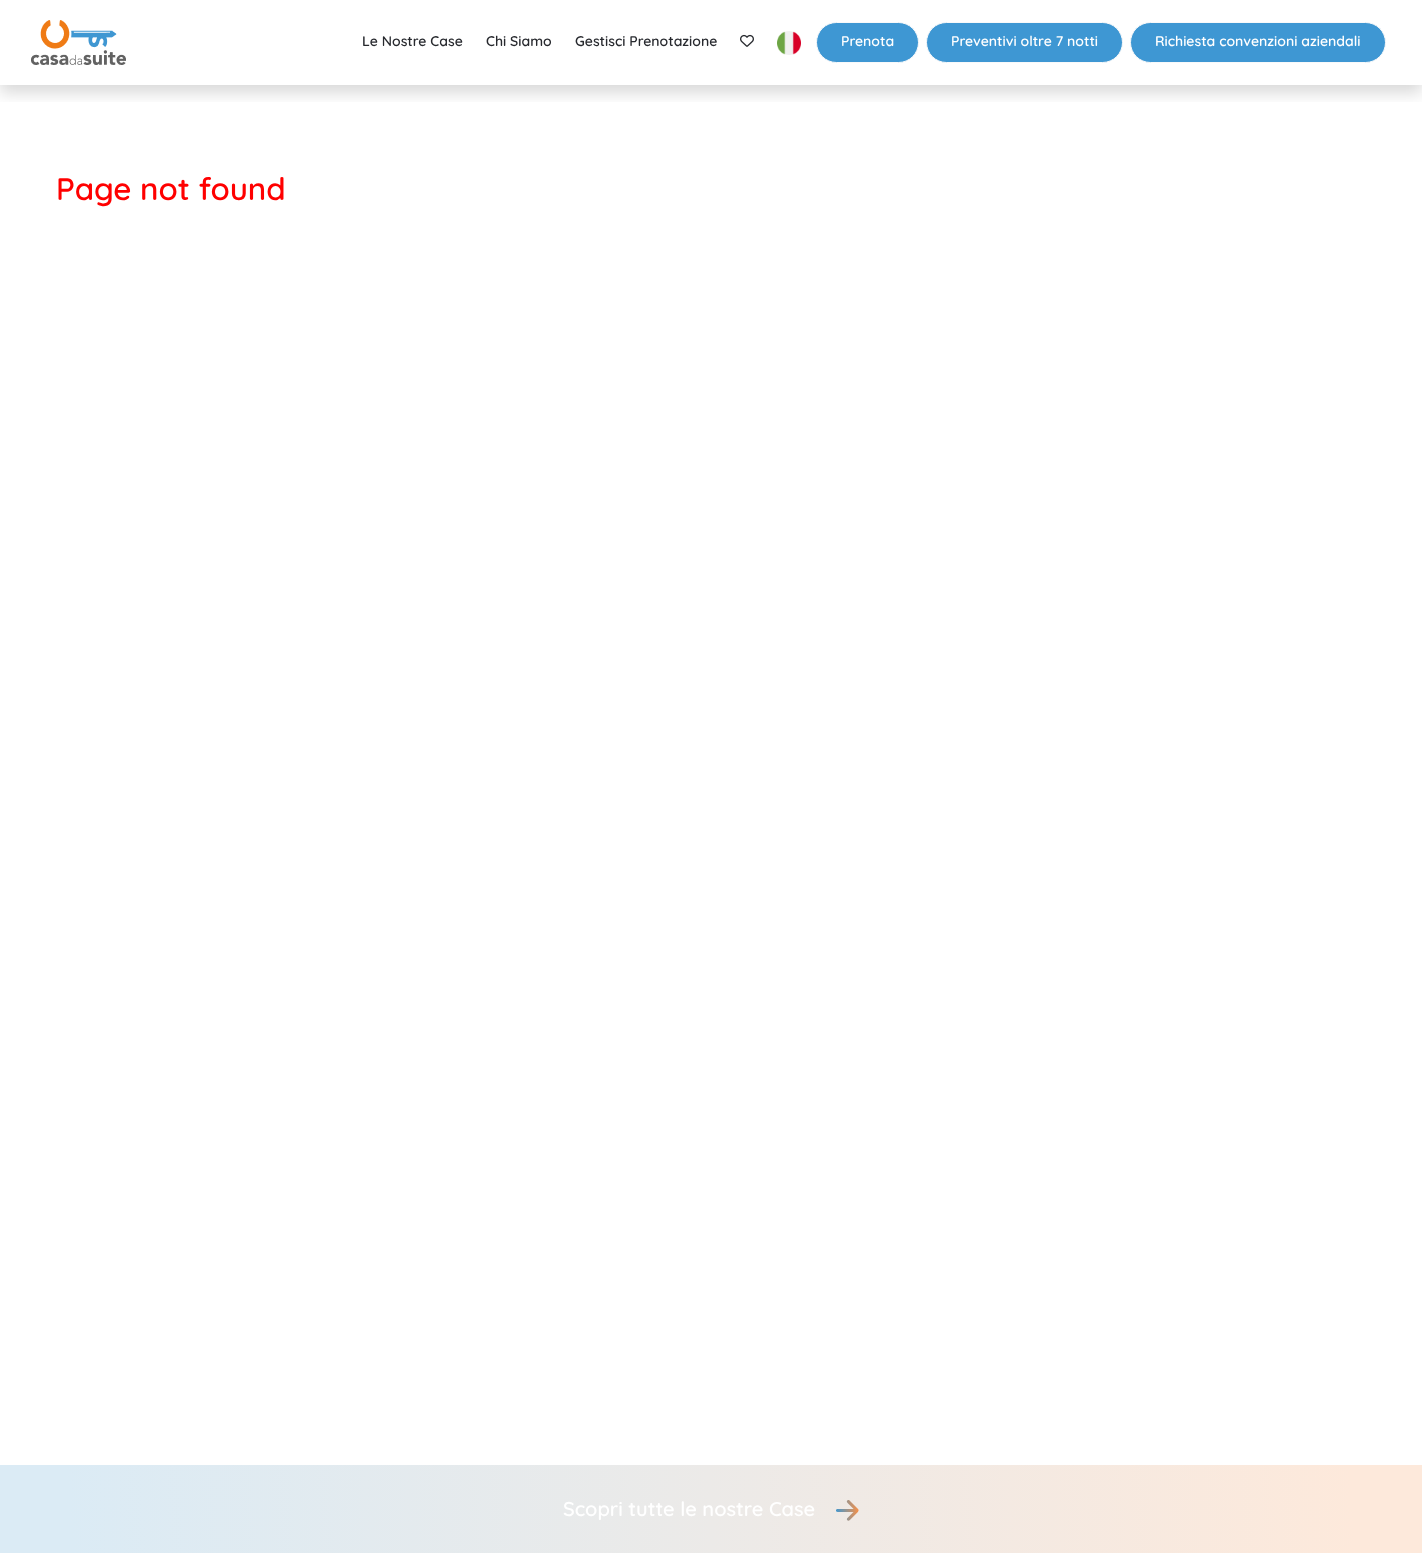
(async () => {
const canvas = document.querySelector("canvas")
canvas.width = 1422
canvas.height = 1563
const c = canvas.getContext("2d")
c.miterLimit = 4
c.fontKerning = "normal"
function T(s,x,y){c.fillText(s,x,y)}
function R(x,y,w,h){c.fillRect(x,y,w,h)}
async function I(src,x,y,w,h){const img=new Image();img.src=src;await img.decode();c.drawImage(img,x,y,w,h)}
let gradient
c.fillStyle="#fff"
R(0,0,1422,1563)
c.save()
c.beginPath()
c.rect(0,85,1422,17)
c.clip()
c.fillStyle="#00000026"
c.filter="blur(8px)"
c.beginPath()
c.rect(0,8,1422,85)
c.fill()
c.filter="none"
c.restore()
await I("1.png",31,20,95,45)
c.font="600 14px Quicksand"
c.fillStyle="#27292e"
T("Le Nostre Case",362,46)
T("Chi Siamo",486,46)
T("Gestisci Prenotazione",575,46)
await I("2.png",740,34,14,13)
await I("3.png",777,31,24,24)
c.fillStyle="#3e97d3"
c.beginPath()
c.roundRect(816.5,22.5,102,40,20)
c.fill()
c.strokeStyle="#f8f9fa"
c.stroke()
c.fillStyle="#fff"
T("Prenota",841,46)
c.fillStyle="#3e97d3"
c.beginPath()
c.roundRect(926.5,22.5,196,40,20)
c.fill()
c.stroke()
c.fillStyle="#fff"
T("Preventivi oltre 7 notti",951,46)
c.fillStyle="#3e97d3"
c.beginPath()
c.roundRect(1130.5,22.5,255,40,20)
c.fill()
c.stroke()
c.fillStyle="#fff"
T("Richiesta convenzioni aziendali",1155,46)
c.font="600 31.25px Quicksand"
c.fillStyle="#f00"
T("Page not found",56,200)
gradient = c.createLinearGradient(.1,1555,1422,1463)
gradient.addColorStop(.05,"#dbebf5")
gradient.addColorStop(.95,"#fde9db")
c.fillStyle = gradient
R(0,1465,1422,88)
c.font="600 20px Quicksand"
c.fillStyle="#fff"
T("Scopri tutte le nostre Case",563,1516)
await I("4.png",836,1500,23,21)
})()
